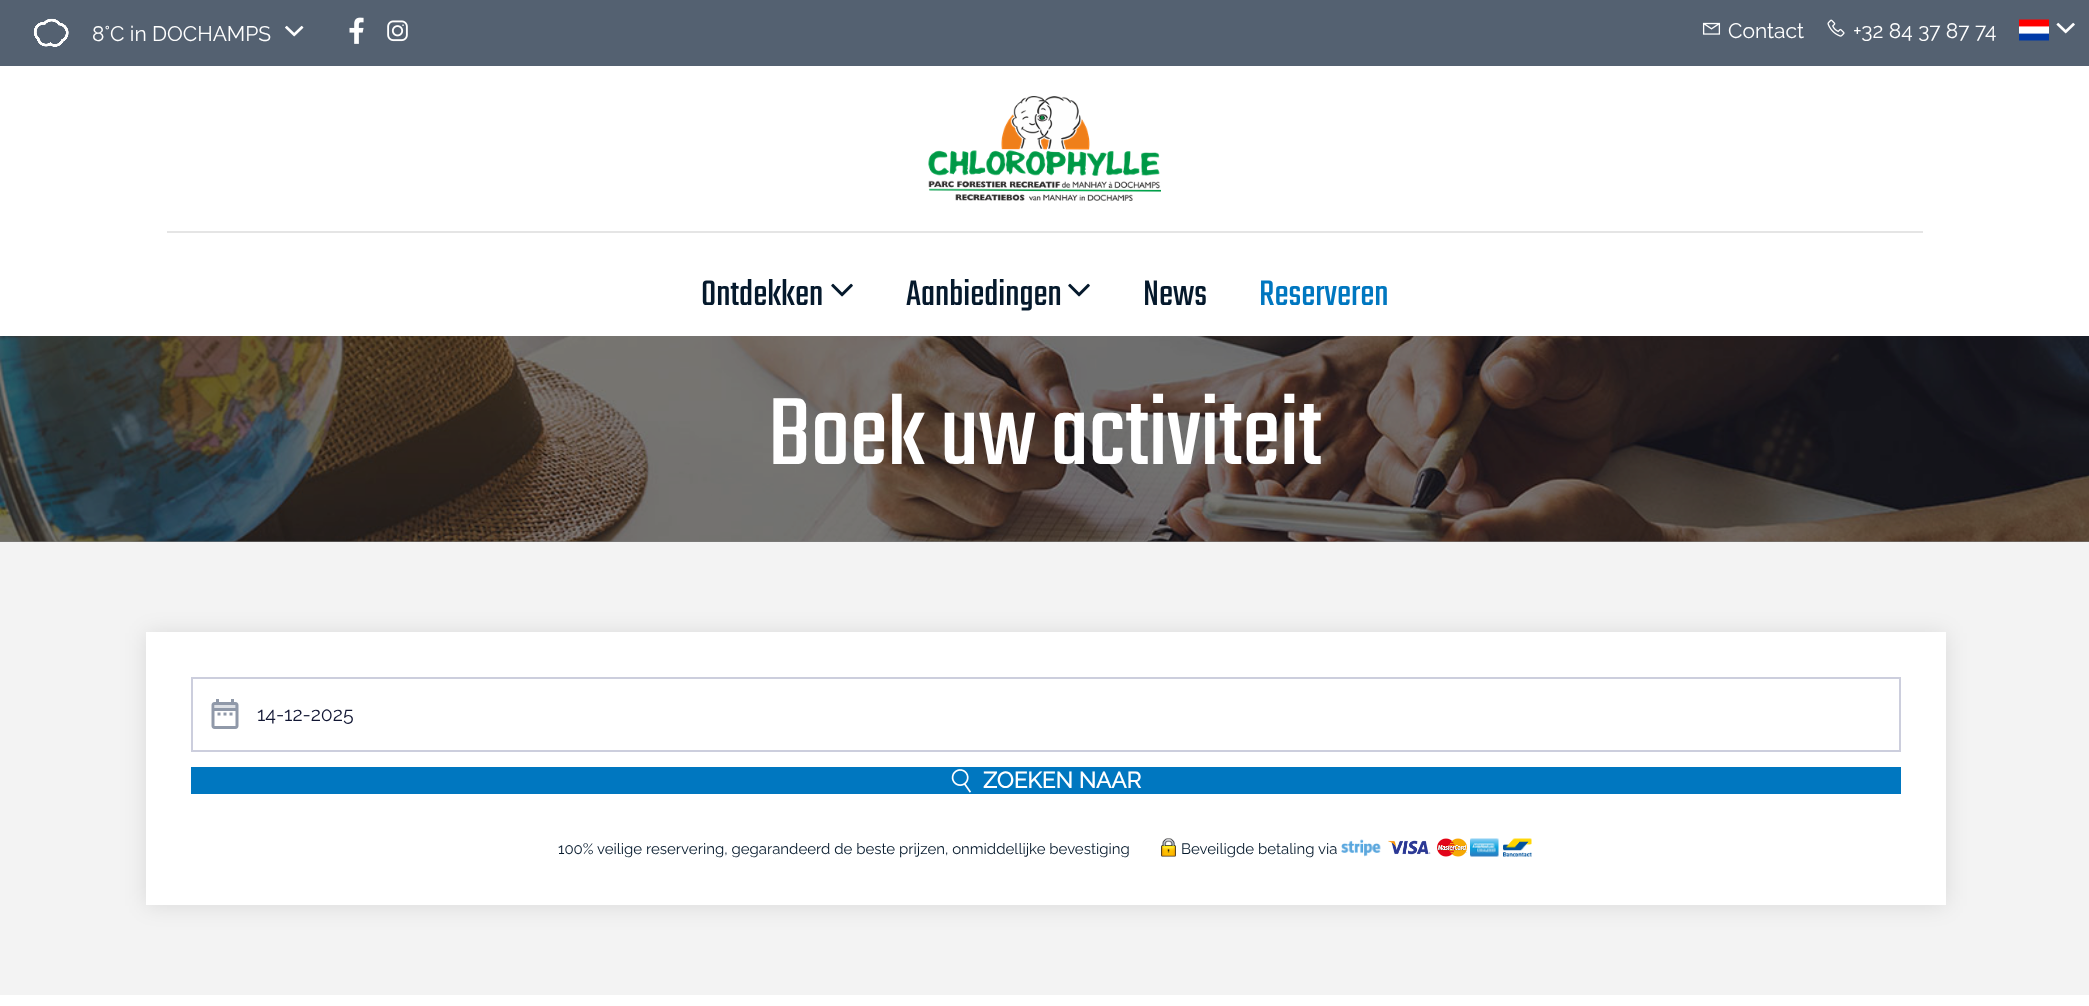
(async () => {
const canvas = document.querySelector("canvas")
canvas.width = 2089
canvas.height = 1006
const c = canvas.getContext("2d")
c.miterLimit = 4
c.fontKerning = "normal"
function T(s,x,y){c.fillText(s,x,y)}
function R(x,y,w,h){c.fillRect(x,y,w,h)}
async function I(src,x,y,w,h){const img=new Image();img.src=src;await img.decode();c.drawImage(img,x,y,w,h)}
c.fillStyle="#fff"
R(0,0,2089,1006)
c.fillStyle="#808080"
R(0,541,2089,1)
c.fillStyle="#546171"
R(0,0,2089,66)
await I("1.png",33,18,36,29)
c.font="100 21px Raleway"
c.fillStyle="#fff"
T("8°C in DOCHAMPS",92,41)
await I("2.png",285,25,19,12)
await I("3.png",349,17,15,27)
await I("4.png",387,20,21,22)
await I("5.png",1702,22,19,13)
T("Contact",1728,38)
await I("6.png",1827,19,18,18)
T("+32 84 37 87 74",1853,38)
await I("7.png",2019,19,30,22)
await I("8.png",2056,22,19,12)
await I("9.png",928,96,233,105)
c.fillStyle="#e5e5e5"
R(167,231,1756,2)
c.font="300 39px Teko"
c.fillStyle="#05192c"
T("Ontdekken",701,305)
await I("10.png",831,283,22,14)
T("Aanbiedingen",906,305)
await I("10.png",1068,283,22,14)
T("News",1143,305)
c.fillStyle="#0077c0"
T("Reserveren",1259,305)
await I("11.png",0,336,2089,206)
c.font="300 105px Teko"
c.fillStyle="#fff"
T("Boek uw activiteit",768,464)
c.fillStyle="#f3f3f3"
R(0,542,2089,453)
c.fillStyle="#0000001a"
c.filter="blur(11px)"
c.beginPath()
c.rect(146,633,1800,273)
c.fill()
c.filter="none"
c.fillStyle="#fff"
R(146,632,1800,273)
c.strokeStyle="#cccedd"
c.lineWidth=2
c.strokeRect(192,678,1708,73)
await I("12.png",211,699,28,30)
c.font="100 19.5px Raleway"
c.fillStyle="#111633"
T("14-12-2025",257,721)
c.fillStyle="#0077c0"
R(191,767,1710,27)
await I("13.png",951,769,20,24)
c.font="bold 22.5px Raleway"
c.fillStyle="#fff"
T("ZOEKEN NAAR",983,788)
c.font="100 15px Raleway"
c.fillStyle="#05192c"
T("100% veilige reservering, gegarandeerd de beste prijzen, onmiddellijke bevestiging",558,854)
await I("14.png",1161,838,15,19)
T("Beveiligde betaling via",1181,854)
await I("15.png",1341,839,40,18)
await I("16.png",1388,840,43,15)
await I("17.png",1437,838,30,19)
await I("18.png",1470,838,29,19)
await I("19.png",1503,838,29,19)
})()
